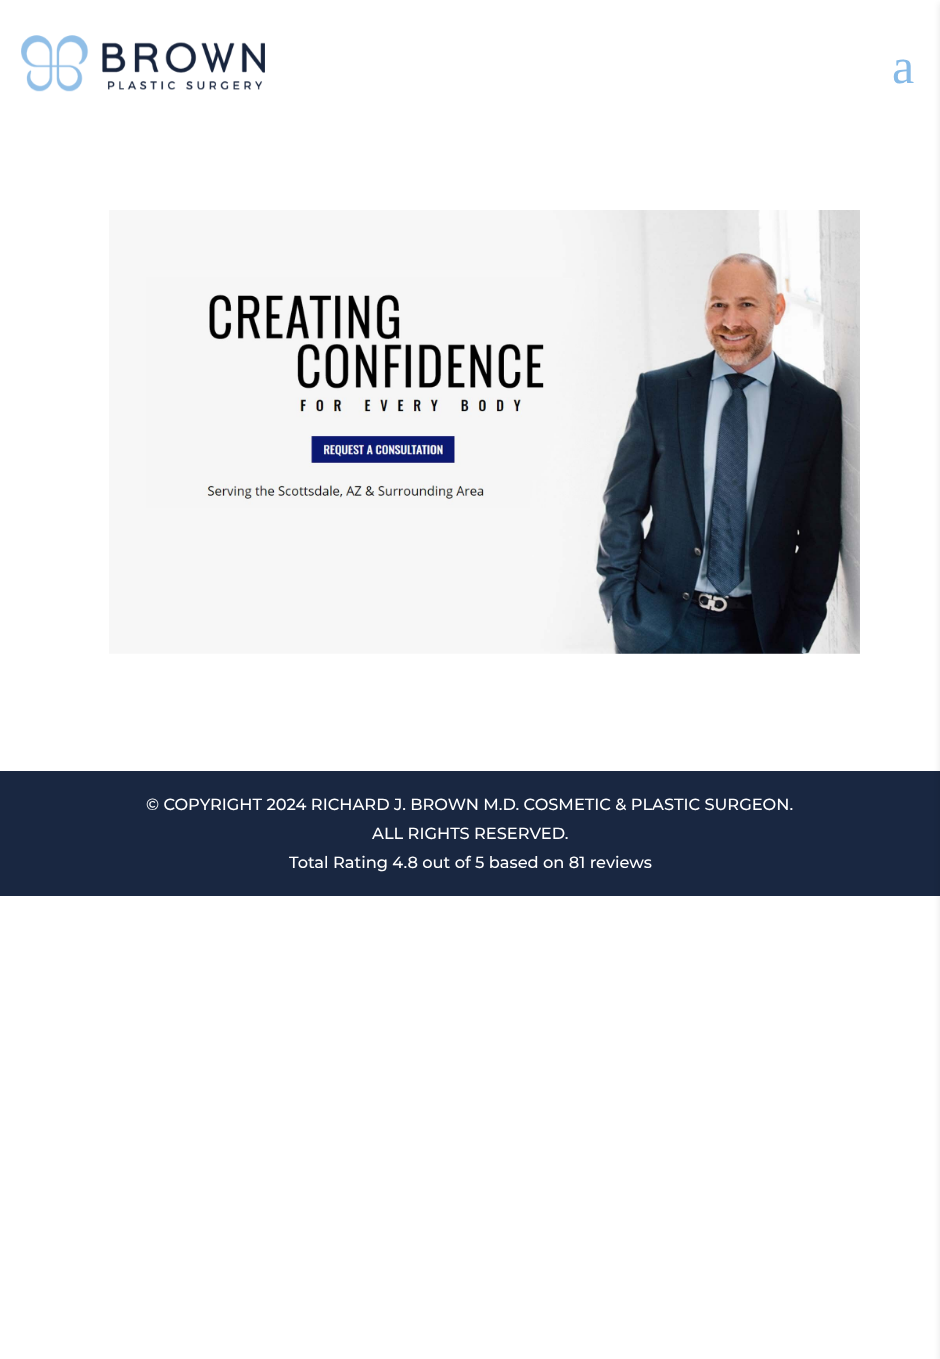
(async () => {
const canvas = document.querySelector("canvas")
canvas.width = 940
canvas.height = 1359
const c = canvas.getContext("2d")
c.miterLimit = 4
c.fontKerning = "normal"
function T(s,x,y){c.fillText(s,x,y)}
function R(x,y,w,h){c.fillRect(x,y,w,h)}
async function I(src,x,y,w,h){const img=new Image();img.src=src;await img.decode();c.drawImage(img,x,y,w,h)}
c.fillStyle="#fff"
R(0,0,940,1359)
await I("1.png",21,35,244,57)
c.font="50px Liberation Serif"
c.fillStyle="#86bae7"
T("a",892,83)
c.fillStyle="#192741"
R(0,771,940,125)
c.fillStyle="#0000001a"
c.filter="blur(3px)"
c.beginPath()
c.rect(940,3,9,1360)
c.fill()
c.filter="none"
await I("2.png",109,210,751,444)
c.font="100 16.25px Montserrat"
c.fillStyle="#fff"
T("© COPYRIGHT 2024 RICHARD J. BROWN M.D. COSMETIC & PLASTIC SURGEON.",146,810)
T("ALL RIGHTS RESERVED.",372,839)
T("Total Rating 4.8 out of 5 based on 81 reviews",289,868)
})()
